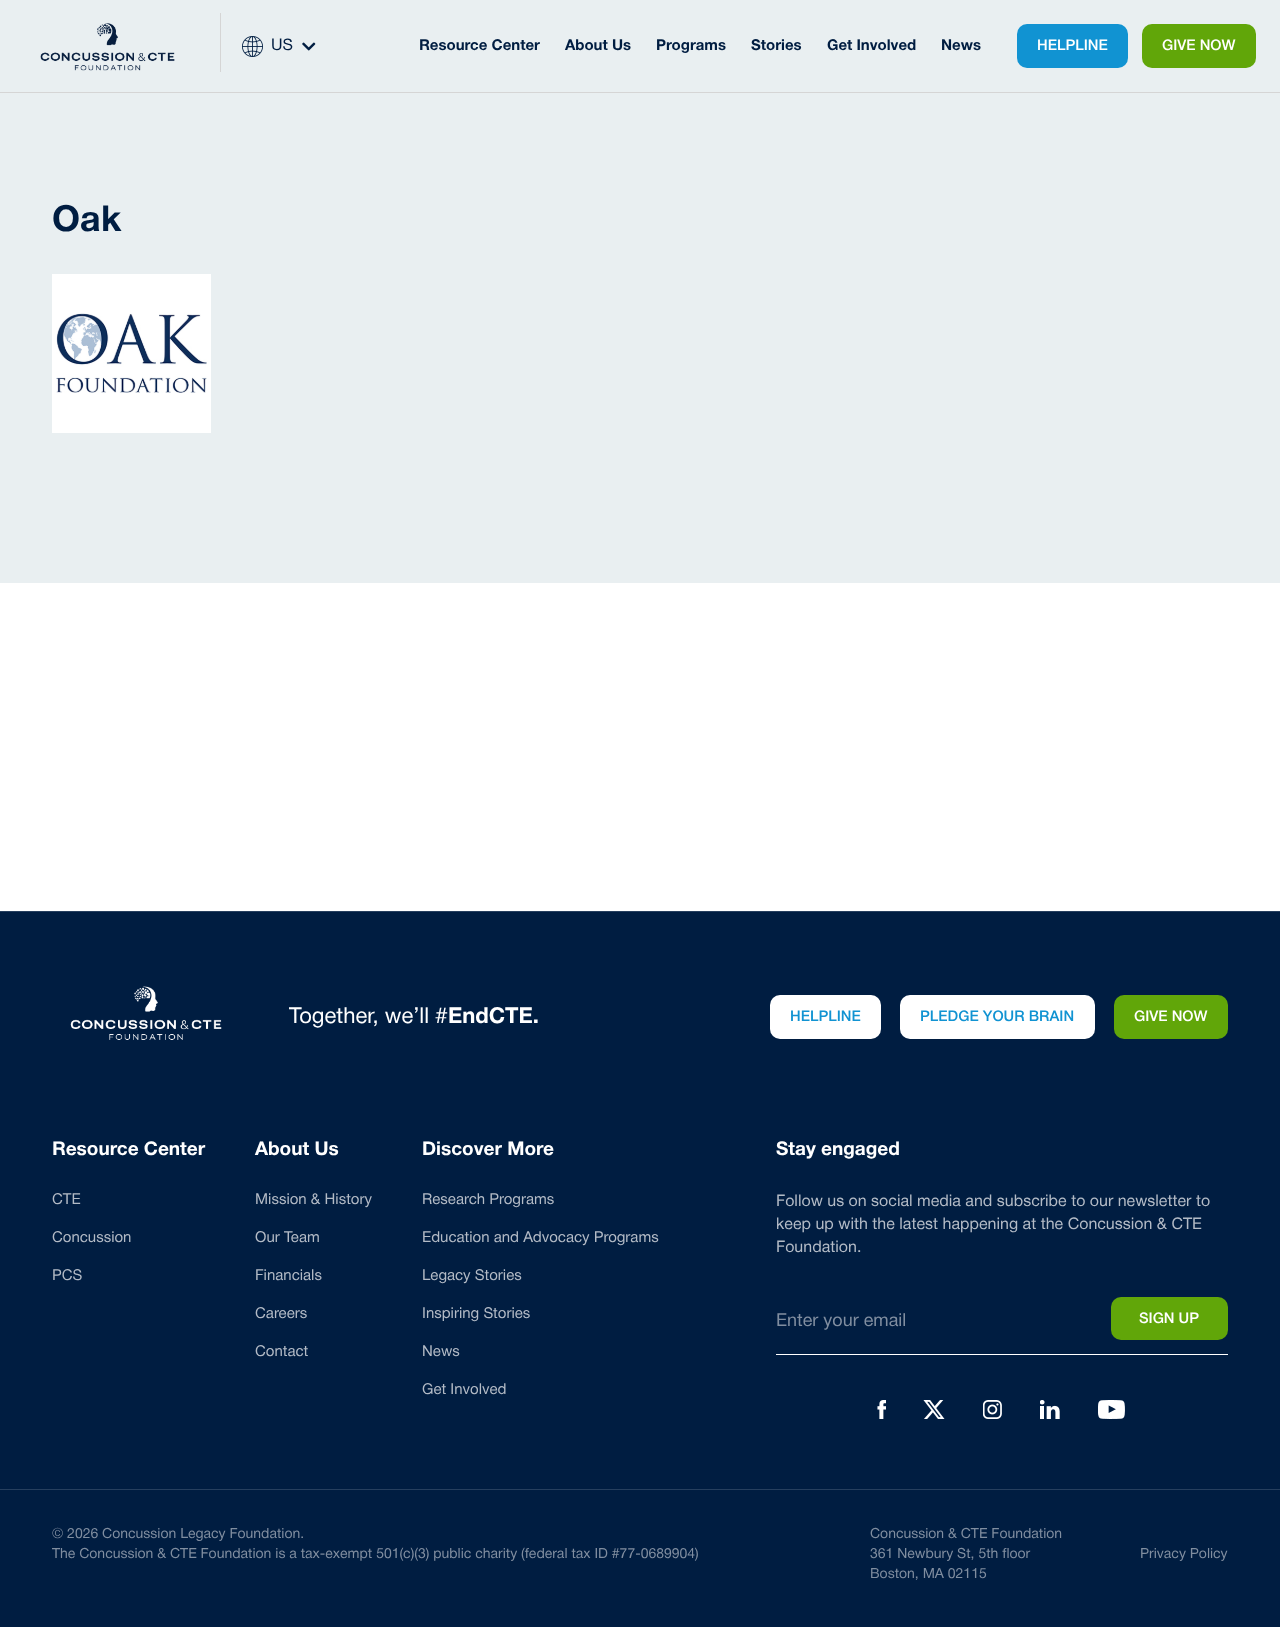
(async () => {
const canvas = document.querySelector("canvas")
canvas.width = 1280
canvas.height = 1627
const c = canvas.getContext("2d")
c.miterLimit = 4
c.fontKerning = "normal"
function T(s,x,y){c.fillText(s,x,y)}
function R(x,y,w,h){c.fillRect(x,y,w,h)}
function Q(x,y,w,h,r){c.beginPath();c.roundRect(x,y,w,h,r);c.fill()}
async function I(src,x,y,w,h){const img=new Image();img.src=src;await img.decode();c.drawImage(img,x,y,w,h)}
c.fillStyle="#fff"
R(0,0,1280,1627)
c.fillStyle="#e9eff1"
R(0,0,1280,583)
c.fillStyle="#d5d5d5"
R(0,92,1280,1)
await I("1.png",40,23,135,48)
R(220,13,1,59)
await I("2.png",242,36,21,21)
c.font="16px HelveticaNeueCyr"
c.fillStyle="#001d41"
T("US",271,50)
await I("3.png",302,42,14,9)
c.font="bold 15px HelveticaNeueCyr"
T("Resource Center",419,50)
T("About Us",565,50)
T("Programs",656,50)
T("Stories",751,50)
T("Get Involved",827,50)
T("News",941,50)
c.fillStyle="#1193d2"
Q(1017,24,111,44,10)
c.font="500 14.75px HelveticaNeueCyr"
c.fillStyle="#fff"
T("HELPLINE",1037,50)
c.fillStyle="#61a609"
Q(1142,24,114,44,10)
c.fillStyle="#fff"
T("GIVE NOW",1162,50)
c.font="bold 36px HelveticaNeueCyr"
c.fillStyle="#001d41"
T("Oak",52,231)
await I("4.png",52,274,159,159)
R(0,912,1280,715)
c.fillStyle="#263f5e"
R(0,911,1280,1)
await I("5.png",70,986,152,54)
c.font="22px HelveticaNeueCyr"
c.fillStyle="#fff"
T("Together, we’ll #",289,1023)
c.font="bold 22px HelveticaNeueCyr"
T("EndCTE.",448,1023)
Q(770,995,111,44,10)
c.font="500 14.75px HelveticaNeueCyr"
c.fillStyle="#1193d2"
T("HELPLINE",790,1021)
c.fillStyle="#fff"
Q(900,995,195,44,10)
c.fillStyle="#1193d2"
T("PLEDGE YOUR BRAIN",920,1021)
c.fillStyle="#61a609"
Q(1114,995,114,44,10)
c.fillStyle="#fff"
T("GIVE NOW",1134,1021)
c.font="bold 19px HelveticaNeueCyr"
T("Resource Center",52,1155)
c.font="15px HelveticaNeueCyr"
c.fillStyle="#b3bbc6"
T("CTE",52,1204)
T("Concussion",52,1242)
T("PCS",52,1280)
c.font="bold 19px HelveticaNeueCyr"
c.fillStyle="#fff"
T("About Us",255,1155)
c.font="15px HelveticaNeueCyr"
c.fillStyle="#b3bbc6"
T("Mission & History",255,1204)
T("Our Team",255,1242)
T("Financials",255,1280)
T("Careers",255,1318)
T("Contact",255,1356)
c.font="bold 19px HelveticaNeueCyr"
c.fillStyle="#fff"
T("Discover More",422,1155)
c.font="15px HelveticaNeueCyr"
c.fillStyle="#b3bbc6"
T("Research Programs",422,1204)
T("Education and Advocacy Programs",422,1242)
T("Legacy Stories",422,1280)
T("Inspiring Stories",422,1318)
T("News",422,1356)
T("Get Involved",422,1394)
c.font="bold 19px HelveticaNeueCyr"
c.fillStyle="#fff"
T("Stay engaged",776,1155)
c.font="16px HelveticaNeueCyr"
c.fillStyle="#b3bbc6"
T("Follow us on social media and subscribe to our newsletter to",776,1206)
T("keep up with the latest happening at the Concussion & CTE",776,1229)
T("Foundation.",776,1252)
c.fillStyle="#fff"
R(776,1354,452,1)
c.font="18px HelveticaNeueCyr"
c.fillStyle="#808ea0"
T("Enter your email",776,1326)
c.fillStyle="#61a609"
Q(1111,1297,117,43,10)
c.font="500 14.75px HelveticaNeueCyr"
c.fillStyle="#fff"
T("SIGN UP",1139,1323)
await I("6.png",877,1400,9,19)
await I("7.png",923,1400,22,19)
await I("8.png",983,1400,19,19)
await I("9.png",1040,1400,20,19)
await I("10.png",1098,1400,27,19)
c.fillStyle="#263f5e"
R(0,1489,1280,1)
c.font="14px HelveticaNeueCyr"
c.fillStyle="#808ea0"
T("© 2026 Concussion Legacy Foundation.",52,1538)
T("The Concussion & CTE Foundation is a tax-exempt 501(c)(3) public charity (federal tax ID #77-0689904)",52,1558)
T("Concussion & CTE Foundation",870,1538)
T("361 Newbury St, 5th floor",870,1558)
T("Boston, MA 02115",870,1578)
T("Privacy Policy",1140,1558)
})()
